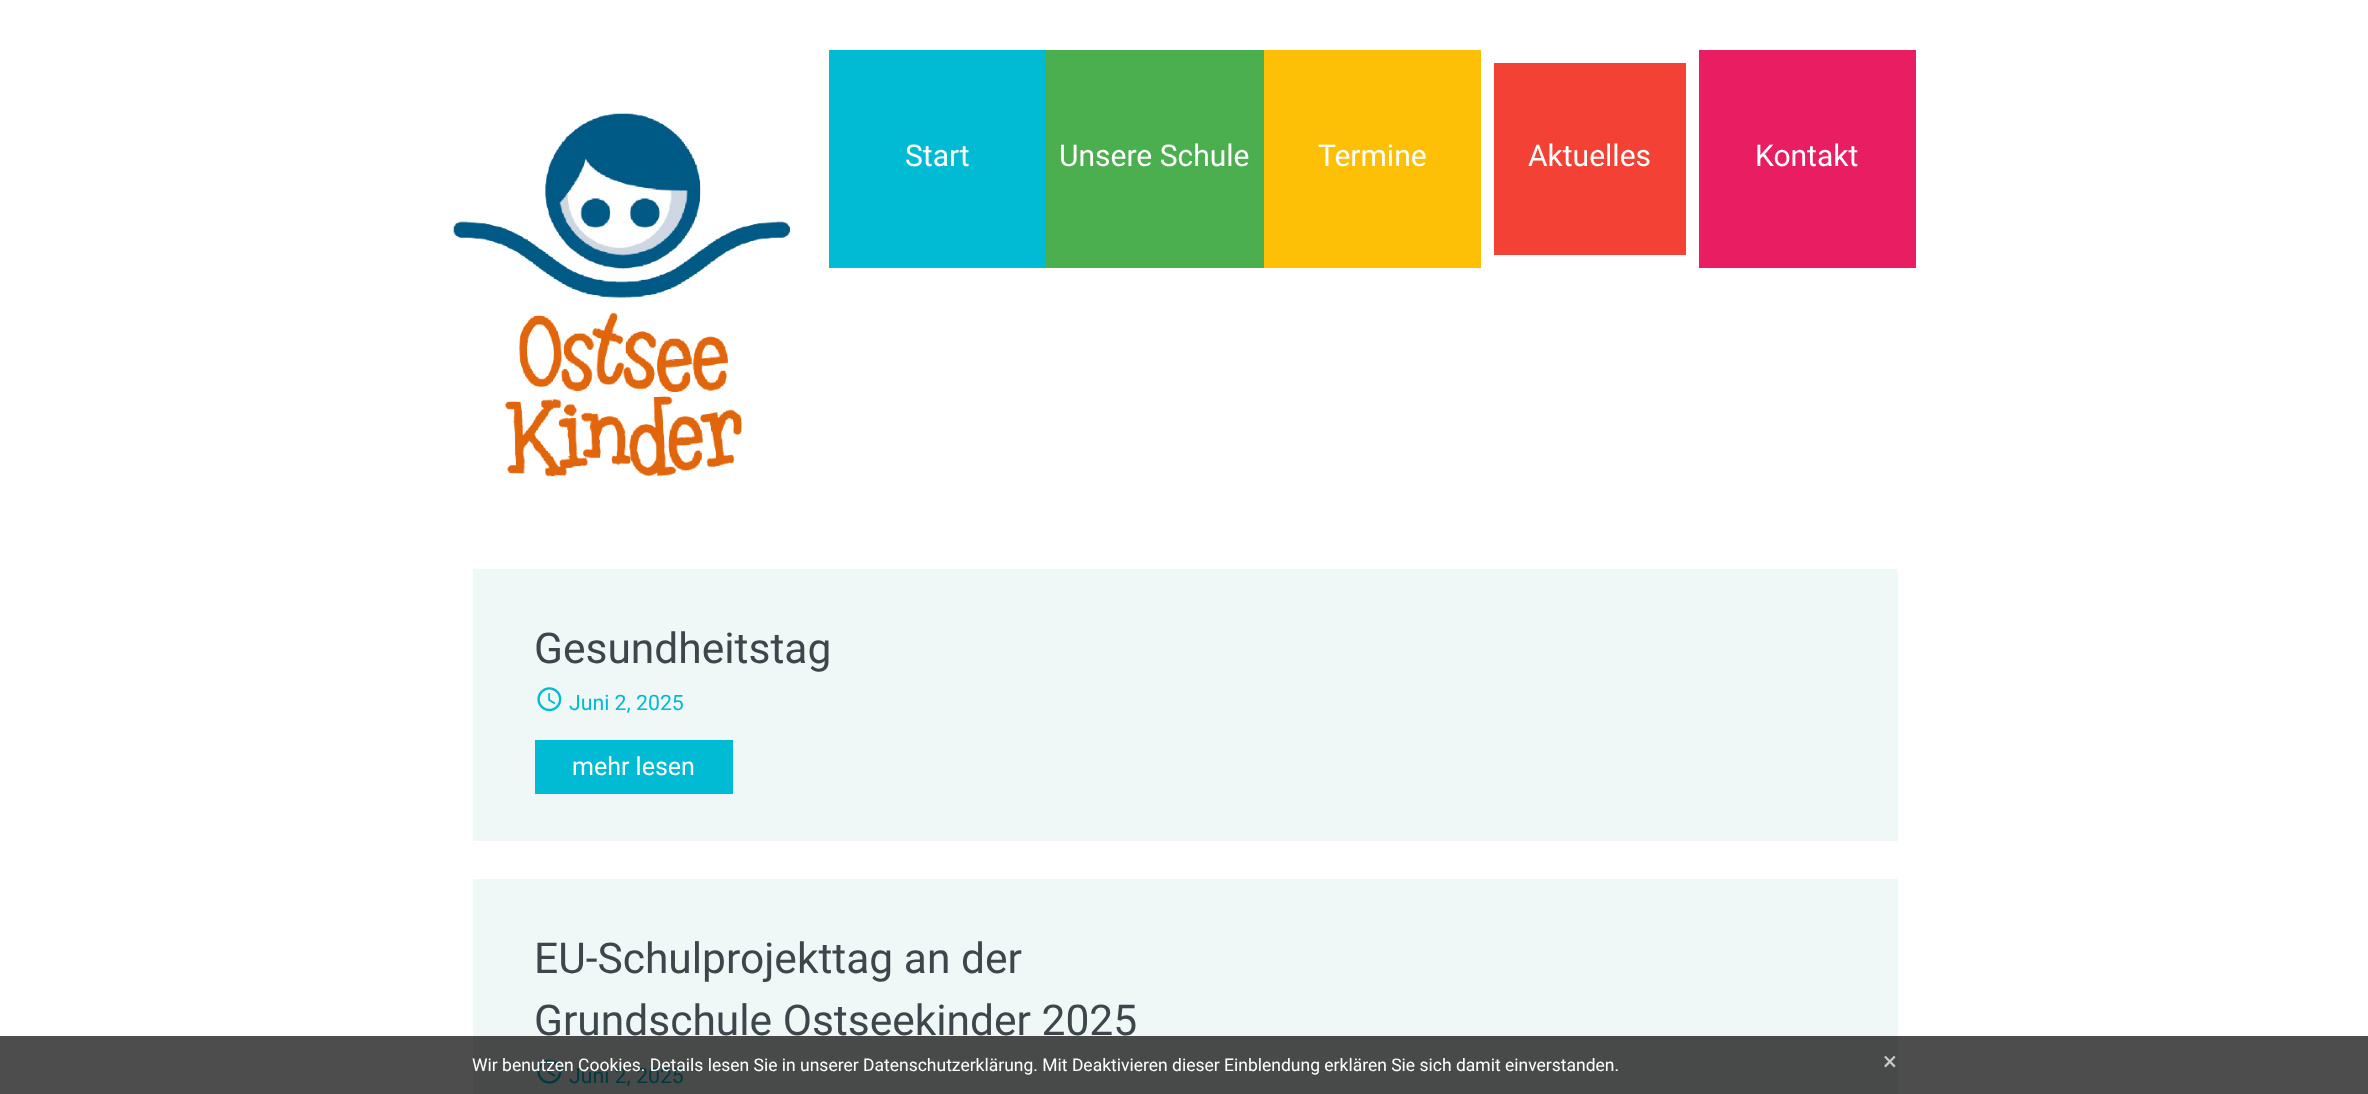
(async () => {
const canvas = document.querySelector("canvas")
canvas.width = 2368
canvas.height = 1094
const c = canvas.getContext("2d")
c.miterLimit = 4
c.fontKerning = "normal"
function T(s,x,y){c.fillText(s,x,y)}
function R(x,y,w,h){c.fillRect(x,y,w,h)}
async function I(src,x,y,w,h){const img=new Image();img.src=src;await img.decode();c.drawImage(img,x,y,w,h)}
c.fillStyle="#fff"
R(0,0,2368,1094)
c.fillStyle="#4d4d4d"
R(0,1036,2368,58)
await I("1.png",453,113,337,364)
c.fillStyle="#00bbd3"
R(829,50,217,218)
c.font="30px Roboto"
c.fillStyle="#fff"
T("Start",905,166)
c.fillStyle="#4bae4f"
R(1046,50,218,218)
c.fillStyle="#fff"
T("Unsere Schule",1059,166)
c.fillStyle="#fec006"
R(1264,50,217,218)
c.fillStyle="#fff"
T("Termine",1318,166)
c.fillStyle="#f34235"
R(1494,63,192,192)
c.fillStyle="#fff"
T("Aktuelles",1528,166)
c.fillStyle="#e81d62"
R(1699,50,217,218)
c.fillStyle="#fff"
T("Kontakt",1755,166)
c.fillStyle="#eff7f7"
R(473,569,1425,272)
c.font="42.5px Roboto"
c.fillStyle="#3e464c"
T("Gesundheitstag",534,663)
await I("2.png",537,687,25,25)
c.font="21.25px Roboto"
c.fillStyle="#00bbd3"
T("Juni 2, 2025",569,710)
R(535,740,198,54)
c.font="25px Roboto"
c.fillStyle="#fff"
T("mehr lesen",572,775)
c.fillStyle="#eff7f7"
R(473,879,1425,157)
c.fillStyle="#484a4a"
R(473,1036,1425,58)
c.font="42.5px Roboto"
c.fillStyle="#3e464c"
T("EU-Schulprojekttag an der",534,973)
T("Grundschule Ostseekinder 2025",534,1035)
await I("3.png",537,1059,25,25)
c.font="21.25px Roboto"
c.fillStyle="#00383f"
T("Juni 2, 2025",569,1083)
c.font="17.5px Roboto"
c.fillStyle="#fff"
T("Wir benutzen Cookies. Details lesen Sie in unserer Datenschutzerklärung. Mit Deaktivieren dieser Einblendung erklären Sie sich damit einverstanden.",472,1071)
c.font="26px Roboto"
c.fillStyle="#c8c9c9"
T("×",1883,1070)
})()
